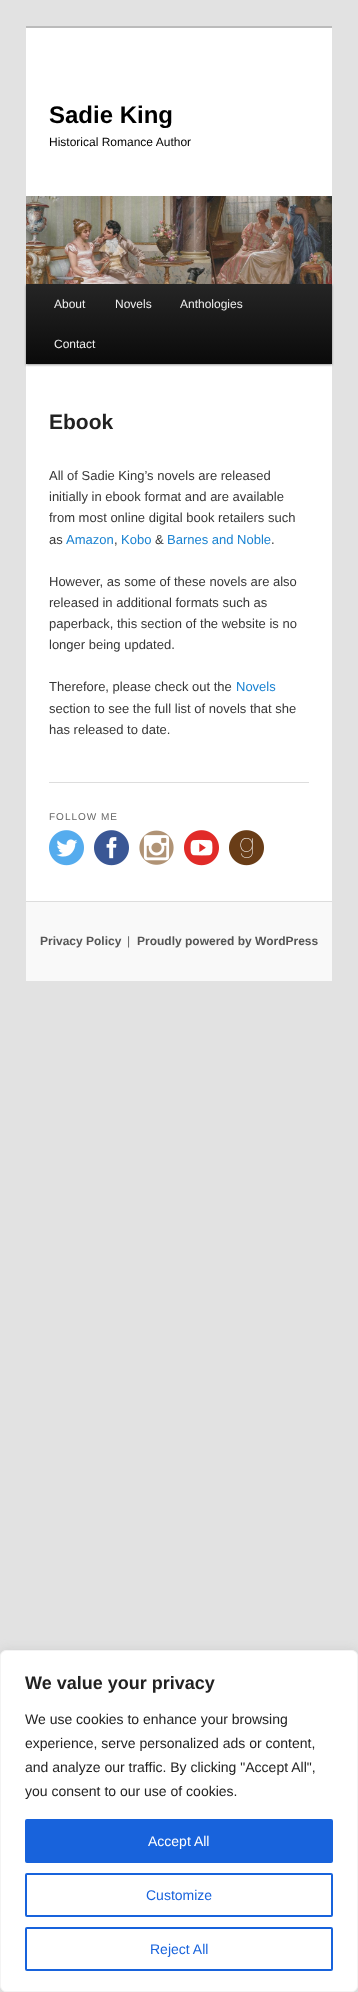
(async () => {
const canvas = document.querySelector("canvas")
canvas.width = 358
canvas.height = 1992
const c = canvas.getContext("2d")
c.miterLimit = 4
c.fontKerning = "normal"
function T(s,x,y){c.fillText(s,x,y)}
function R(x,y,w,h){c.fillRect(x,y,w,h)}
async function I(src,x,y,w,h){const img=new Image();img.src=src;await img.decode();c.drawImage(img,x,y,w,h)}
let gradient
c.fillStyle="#e2e2e2"
R(0,0,358,1992)
c.fillStyle="#fff"
R(26,28,306,873)
c.fillStyle="#bbb"
R(26,26,306,2)
c.font="bold 24px Liberation Sans"
c.fillStyle="#000"
T("Sadie King",49,123)
c.font="12px Liberation Sans"
T("Historical Romance Author",49,146)
c.fillStyle="#00000066"
c.filter="blur(1px)"
c.beginPath()
c.rect(26,285,306,80)
c.fill()
c.filter="none"
await I("1.png",26,196,306,88)
gradient = c.createLinearGradient(179,284,179,364)
gradient.addColorStop(0,"#252525")
gradient.addColorStop(1,"#0a0a0a")
c.fillStyle = gradient
R(26,284,306,80)
c.fillStyle="#eee"
T("About",54,308)
T("Novels",115,308)
T("Anthologies",180,308)
T("Contact",54,348)
c.fillStyle="#ddd"
R(49,782,260,1)
c.font="bold 21px Liberation Sans"
c.fillStyle="#222"
T("Ebook",49,429)
c.font="13px Liberation Sans"
c.fillStyle="#373737"
T("All of Sadie King’s novels are released",49,480)
T("initially in ebook format and are available",49,501)
T("from most online digital book retailers such",49,522)
T("as",49,544)
c.fillStyle="#1982d1"
T("Amazon",66,544)
c.fillStyle="#373737"
T(",",114,544)
c.fillStyle="#1982d1"
T("Kobo",121,544)
c.fillStyle="#373737"
T("&",155,544)
c.fillStyle="#1982d1"
T("Barnes and Noble",167,544)
c.fillStyle="#373737"
T(".",271,544)
T("However, as some of these novels are also",49,586)
T("released in additional formats such as",49,607)
T("paperback, this section of the website is no",49,628)
T("longer being updated.",49,649)
T("Therefore, please check out the",49,691)
c.fillStyle="#1982d1"
T("Novels",236,691)
c.fillStyle="#373737"
T("section to see the full list of novels that she",49,713)
T("has released to date.",49,734)
c.letterSpacing="1px"
c.font="10px Liberation Sans"
c.fillStyle="#666"
T("FOLLOW ME",49,820)
await I("2.png",49,830,35,36)
await I("3.png",94,830,35,36)
await I("4.png",139,830,35,35)
await I("5.png",184,830,35,36)
await I("6.png",229,830,35,36)
c.fillStyle="#f9f9f9"
R(26,902,306,79)
c.fillStyle="#ddd"
R(26,901,306,1)
c.letterSpacing="0px"
c.font="bold 12px Liberation Sans"
c.fillStyle="#555"
T("Privacy Policy",40,945)
c.font="12px Liberation Sans"
c.fillStyle="#666"
T("|",127,945)
c.font="bold 12px Liberation Sans"
c.fillStyle="#555"
T("Proudly powered by WordPress",137,945)
c.fillStyle="#acabab4d"
c.filter="blur(5px)"
c.beginPath()
c.roundRect(0,1649,358,342,6)
c.fill()
c.filter="none"
c.fillStyle="#fff"
c.beginPath()
c.roundRect(.5,1650.5,357,341,5.5)
c.fill()
c.strokeStyle="#f4f4f4"
c.stroke()
c.font="bold 18px Liberation Sans"
c.fillStyle="#222"
T("We value your privacy",25,1689)
c.font="14px Liberation Sans"
T("We use cookies to enhance your browsing",25,1724)
T("experience, serve personalized ads or content,",25,1748)
T("and analyze our traffic. By clicking \"Accept All\",",25,1772)
T("you consent to our use of cookies.",25,1796)
c.fillStyle="#1863dc"
c.beginPath()
c.roundRect(26,1820,306,42,1)
c.fill()
c.strokeStyle="#1863dc"
c.lineWidth=2
c.stroke()
c.fillStyle="#fff"
T("Accept All",148,1846)
c.beginPath()
c.roundRect(26,1874,306,42,1)
c.stroke()
c.fillStyle="#1863dc"
T("Customize",146,1900)
c.beginPath()
c.roundRect(26,1928,306,42,1)
c.stroke()
T("Reject All",150,1954)
})()
